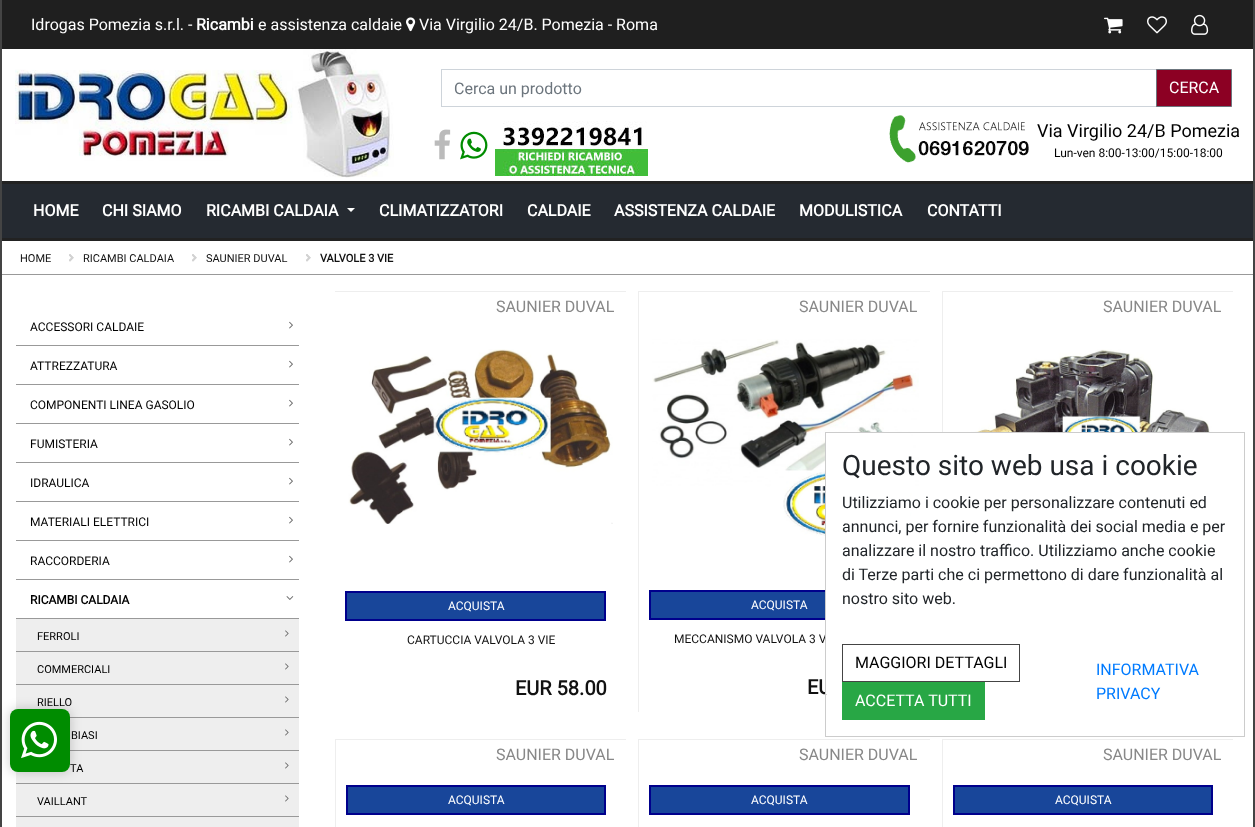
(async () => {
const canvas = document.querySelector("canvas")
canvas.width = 1255
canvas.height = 827
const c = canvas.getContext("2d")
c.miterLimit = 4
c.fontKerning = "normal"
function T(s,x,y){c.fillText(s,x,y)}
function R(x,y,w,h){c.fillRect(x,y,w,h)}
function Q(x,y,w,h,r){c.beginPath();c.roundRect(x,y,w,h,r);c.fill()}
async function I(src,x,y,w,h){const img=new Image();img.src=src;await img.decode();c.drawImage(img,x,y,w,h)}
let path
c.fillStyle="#fff"
R(0,0,1255,827)
c.fillStyle="#222"
R(0,181,1255,3)
R(0,238,1255,3)
c.strokeStyle="#999"
c.strokeRect(.5,274.5,1254,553)
c.fillStyle="#444"
R(0,0,2,827)
c.fillStyle="#1f1f1f"
R(2,0,1251,49)
c.font="16px Roboto"
c.fillStyle="#fff"
T("Idrogas Pomezia s.r.l. -",31,30)
c.font="bold 16px Roboto"
T("Ricambi",196,30)
c.font="16px Roboto"
T("e assistenza caldaie",258,30)
await I("1.png",406,17,10,15)
T("Via Virgilio 24/B. Pomezia - Roma",419,30)
await I("2.png",1104,17,19,17)
await I("3.png",1147,16,20,18)
await I("4.png",1191,14,18,21)
await I("5.png",15,49,379,129)
c.strokeStyle="#ced4da"
c.strokeRect(441.5,69.5,715,37)
c.fillStyle="#6c757d"
T("Cerca un prodotto",454,94)
c.fillStyle="#8c0023"
c.beginPath()
c.rect(1156.5,69.5,75,37)
c.fill()
c.strokeStyle="#6c757d"
c.stroke()
c.fillStyle="#fff"
T("CERCA",1169,93)
await I("6.png",434,129,17,31)
await I("7.png",460,131,28,29)
await I("8.png",495,121,153,55)
await I("9.png",889,115,140,48)
c.font="18px Roboto"
c.fillStyle="#000"
T("Via Virgilio 24/B Pomezia",1037,137)
c.font="12px Roboto"
T("Lun-ven 8:00-13:00/15:00-18:00",1054,157)
c.fillStyle="#252a31"
R(2,184,1251,54)
c.font="bold 16px Roboto"
c.fillStyle="#fff"
T("HOME",33,216)
T("CHI SIAMO",102,216)
T("RICAMBI CALDAIA",206,216)
path = new Path2D("M347 208h8l-4 4z")
c.fill(path)
T("CLIMATIZZATORI",379,216)
T("CALDAIE",527,216)
T("ASSISTENZA CALDAIE",614,216)
T("MODULISTICA",799,216)
T("CONTATTI",927,216)
c.font="11px Roboto"
c.fillStyle="#111"
T("HOME",20,262)
await I("10.png",69,254,5,8)
T("RICAMBI CALDAIA",83,262)
await I("10.png",192,254,5,8)
T("SAUNIER DUVAL",206,262)
await I("10.png",306,254,5,8)
c.font="bold 11px Roboto"
T("VALVOLE 3 VIE",320,262)
c.fillStyle="#999"
R(16,345,283,1)
c.font="12px Roboto"
c.fillStyle="#000"
T("ACCESSORI CALDAIE",30,331)
await I("11.png",289,321,4,8)
c.fillStyle="#999"
R(16,384,283,1)
c.fillStyle="#000"
T("ATTREZZATURA",30,370)
await I("11.png",289,360,4,8)
c.fillStyle="#999"
R(16,423,283,1)
c.fillStyle="#000"
T("COMPONENTI LINEA GASOLIO",30,409)
await I("11.png",289,399,4,8)
c.fillStyle="#999"
R(16,462,283,1)
c.fillStyle="#000"
T("FUMISTERIA",30,448)
await I("11.png",289,438,4,8)
c.fillStyle="#999"
R(16,501,283,1)
c.fillStyle="#000"
T("IDRAULICA",30,487)
await I("11.png",289,477,4,8)
c.fillStyle="#999"
R(16,540,283,1)
c.fillStyle="#000"
T("MATERIALI ELETTRICI",30,526)
await I("11.png",289,516,4,8)
c.fillStyle="#999"
R(16,579,283,1)
c.fillStyle="#000"
T("RACCORDERIA",30,565)
await I("11.png",289,555,4,8)
c.fillStyle="#999"
R(16,618,283,1)
c.font="bold 12px Roboto"
c.fillStyle="#000"
T("RICAMBI CALDAIA",30,604)
await I("12.png",286,596,8,4)
c.fillStyle="#eee"
R(16,619,283,32)
c.fillStyle="#999"
R(16,651,283,1)
c.font="11px Roboto"
c.fillStyle="#000"
T("FERROLI",37,640)
await I("13.png",285,630,4,7)
c.fillStyle="#eee"
R(16,652,283,32)
c.fillStyle="#999"
R(16,684,283,1)
c.fillStyle="#000"
T("COMMERCIALI",37,673)
await I("13.png",285,663,4,7)
c.fillStyle="#eee"
R(16,685,283,32)
c.fillStyle="#999"
R(70,717,229,1)
c.fillStyle="#000"
T("RIELLO",37,706)
await I("13.png",285,696,4,7)
c.fillStyle="#eee"
R(70,718,229,32)
c.fillStyle="#999"
R(70,750,229,1)
c.fillStyle="#000"
T("BIASI",71,739)
await I("13.png",285,729,4,7)
c.fillStyle="#eee"
R(16,751,283,32)
c.fillStyle="#999"
R(16,783,283,1)
c.fillStyle="#000"
T("TA",70,772)
await I("13.png",285,762,4,7)
c.fillStyle="#eee"
R(16,784,283,32)
c.fillStyle="#999"
R(16,816,283,1)
c.fillStyle="#000"
T("VAILLANT",37,805)
await I("13.png",285,795,4,7)
c.fillStyle="#eee"
R(16,817,283,10)
c.font="16px Roboto"
c.fillStyle="#888"
T("SAUNIER DUVAL",496,312)
c.fillStyle="#eee"
R(335,291,291,1)
await I("14.png",348,349,265,175)
c.fillStyle="#18469a"
c.beginPath()
c.rect(346,592,259,28)
c.fill()
c.strokeStyle="#00008c"
c.lineWidth=2
c.stroke()
c.font="12px Roboto"
c.fillStyle="#fff"
T("ACQUISTA",448,610)
c.fillStyle="#111"
T("CARTUCCIA VALVOLA 3 VIE",407,644)
c.font="bold 20px Roboto"
T("EUR 58.00",515,695)
c.font="16px Roboto"
c.fillStyle="#888"
T("SAUNIER DUVAL",799,312)
c.fillStyle="#eee"
R(638,291,292,1)
R(638,291,1,421)
await I("15.png",652,339,267,199)
c.fillStyle="#18469a"
R(651,592,174,26)
c.strokeRect(650,591,259,28)
c.font="12px Roboto"
c.fillStyle="#fff"
T("ACQUISTA",751,609)
c.fillStyle="#111"
T("MECCANISMO VALVOLA 3 V",674,643)
c.font="bold 20px Roboto"
T("EU",807,694)
c.fillStyle="#eee"
R(942,291,291,1)
R(942,291,1,141)
await I("16.png",953,349,268,83)
c.font="16px Roboto"
c.fillStyle="#888"
T("SAUNIER DUVAL",1103,312)
T("SAUNIER DUVAL",496,760)
c.fillStyle="#eee"
R(335,739,291,1)
R(335,739,1,88)
c.fillStyle="#18469a"
c.beginPath()
c.rect(347,786,258,28)
c.fill()
c.stroke()
c.font="12px Roboto"
c.fillStyle="#fff"
T("ACQUISTA",448,804)
c.font="16px Roboto"
c.fillStyle="#888"
T("SAUNIER DUVAL",799,760)
c.fillStyle="#eee"
R(638,739,292,1)
R(638,739,1,88)
c.fillStyle="#18469a"
c.beginPath()
c.rect(650,786,259,28)
c.fill()
c.stroke()
c.font="12px Roboto"
c.fillStyle="#fff"
T("ACQUISTA",751,804)
c.font="16px Roboto"
c.fillStyle="#888"
T("SAUNIER DUVAL",1103,760)
c.fillStyle="#eee"
R(942,739,291,1)
R(942,739,1,88)
c.fillStyle="#18469a"
c.beginPath()
c.rect(954,786,258,28)
c.fill()
c.stroke()
c.font="12px Roboto"
c.fillStyle="#fff"
T("ACQUISTA",1055,804)
c.fillStyle="#444"
R(1253,0,2,827)
c.fillStyle="#fff"
R(826,433,84,261)
c.strokeStyle="#ccc"
c.lineWidth=1
c.strokeRect(825.5,432.5,419,304)
c.font="28px Roboto"
c.fillStyle="#212529"
T("Questo sito web usa i cookie",842,475)
c.font="16px Roboto"
T("Utilizziamo i cookie per personalizzare contenuti ed",842,508)
T("annunci, per fornire funzionalità dei social media e per",842,532)
T("analizzare il nostro traffico. Utilizziamo anche cookie",842,556)
T("di Terze parti che ci permettono di dare funzionalità al",842,580)
T("nostro sito web.",842,604)
c.strokeStyle="#444"
c.strokeRect(842.5,644.5,177,37)
c.fillStyle="#000"
T("MAGGIORI DETTAGLI",855,668)
c.fillStyle="#28a745"
R(842,682,143,38)
c.fillStyle="#fff"
T("ACCETTA TUTTI",855,706)
c.fillStyle="#007bff"
T("INFORMATIVA",1096,675)
T("PRIVACY",1096,699)
c.fillStyle="#00000033"
c.filter="blur(6px)"
c.beginPath()
c.roundRect(10,709,60,63,8)
c.fill()
c.filter="none"
c.fillStyle="#008c00"
Q(10,709,60,63,8)
await I("17.png",21,721,36,38)
})()
